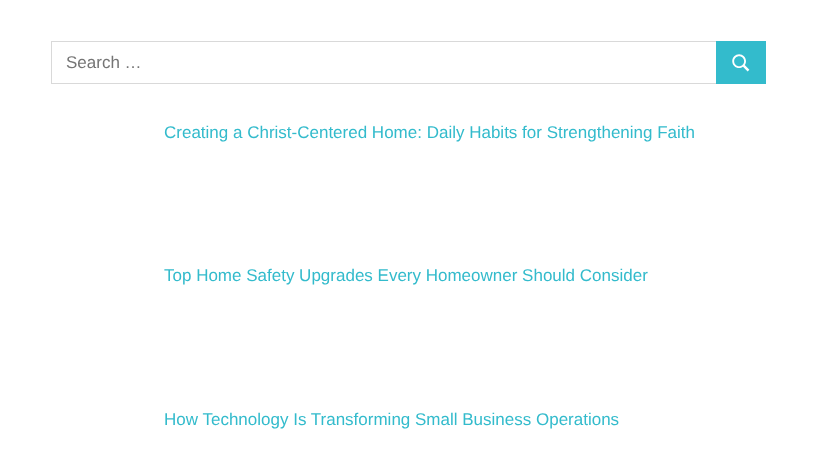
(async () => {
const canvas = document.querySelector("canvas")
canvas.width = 817
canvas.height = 455
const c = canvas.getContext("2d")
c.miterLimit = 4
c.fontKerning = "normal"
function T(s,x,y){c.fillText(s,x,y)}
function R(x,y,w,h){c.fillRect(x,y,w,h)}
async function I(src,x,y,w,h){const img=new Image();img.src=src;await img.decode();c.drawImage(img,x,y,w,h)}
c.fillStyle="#fff"
R(0,0,817,455)
c.strokeStyle="#d9d9d9"
c.strokeRect(51.5,41.5,665,42)
c.font="17px Liberation Sans"
c.fillStyle="#757575"
T("Search …",66,68)
c.fillStyle="#3bc"
R(716,41,50,43)
await I("1.png",732,54,18,18)
T("Creating a Christ-Centered Home: Daily Habits for Strengthening Faith",164,138)
T("Top Home Safety Upgrades Every Homeowner Should Consider",164,281)
T("How Technology Is Transforming Small Business Operations",164,425)
})()
